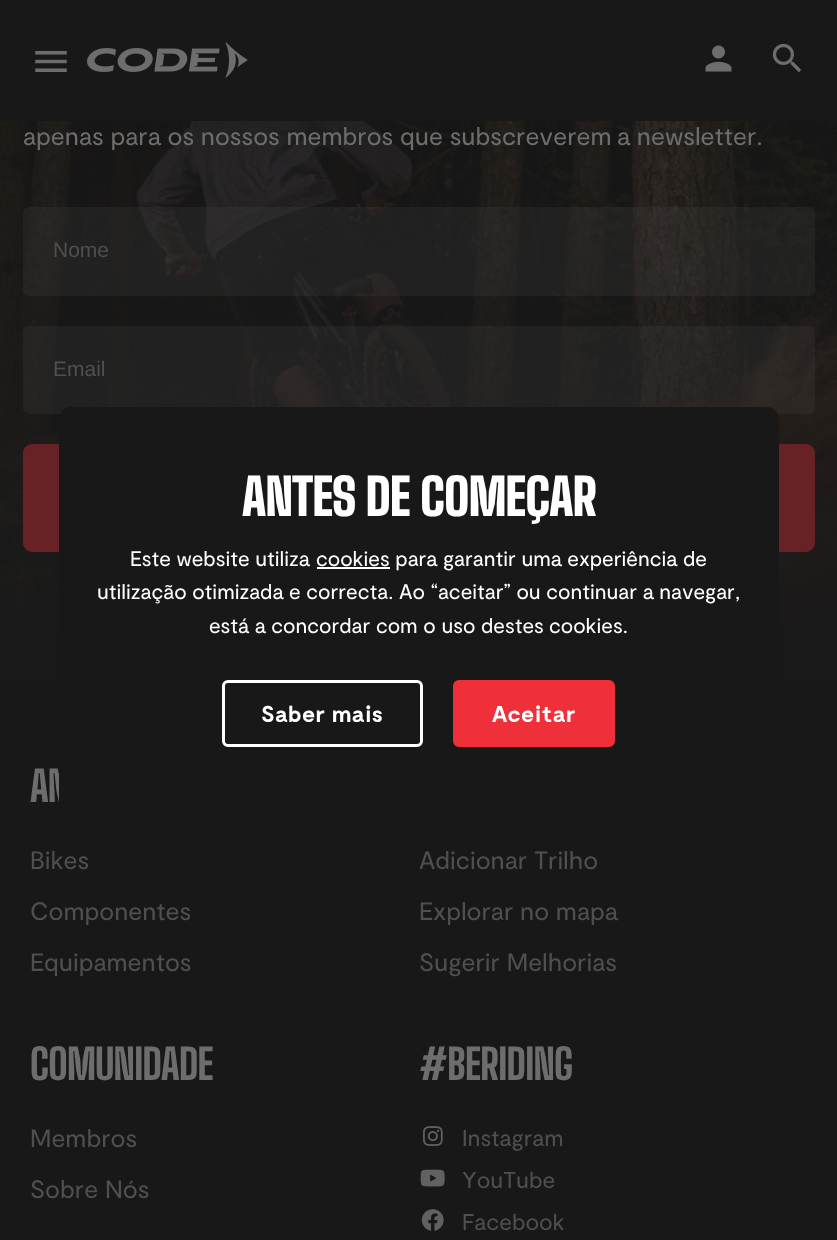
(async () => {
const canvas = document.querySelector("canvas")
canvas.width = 837
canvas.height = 1240
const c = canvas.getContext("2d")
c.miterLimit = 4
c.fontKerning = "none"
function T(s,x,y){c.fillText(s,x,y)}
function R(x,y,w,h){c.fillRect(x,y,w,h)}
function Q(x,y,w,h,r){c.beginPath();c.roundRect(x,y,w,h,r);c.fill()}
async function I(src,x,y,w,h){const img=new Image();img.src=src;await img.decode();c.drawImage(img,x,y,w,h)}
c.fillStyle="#fff"
R(0,0,837,1240)
c.fillStyle="#181819"
R(0,0,837,121)
await I("1.png",35,51,32,21)
await I("2.png",87,42,161,36)
await I("3.png",705,45,27,27)
await I("4.png",772,43,30,30)
await I("5.png",0,121,837,566)
c.font="25.2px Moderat"
c.fillStyle="#6d6d6d"
T("apenas para os nossos membros que subscreverem",23,145)
T("a newsletter.",617,145)
c.fillStyle="#6d6d6d1f"
Q(23,207,792,89,6)
c.font="21px Liberation Sans"
c.fillStyle="#504f4f"
T("Nome",53,257)
c.fillStyle="#6d6d6d1f"
Q(23,326,792,88,6)
c.fillStyle="#504f4f"
T("Email",53,376)
c.fillStyle="#682125"
Q(23,444,792,108,9)
c.fillStyle="#181819"
R(0,687,837,553)
c.letterSpacing="-0.75px"
c.font="800 42px Big Shoulders Display"
c.fillStyle="#6d6d6d"
T("AN",30,802)
c.letterSpacing="0px"
c.font="25.2px Moderat"
c.fillStyle="#504f4f"
T("Bikes",30,869)
T("Componentes",30,920)
T("Equipamentos",30,971)
T("Adicionar Trilho",419,869)
T("Explorar no mapa",419,920)
T("Sugerir Melhorias",419,971)
c.letterSpacing="-0.75px"
c.font="800 42px Big Shoulders Display"
c.fillStyle="#6d6d6d"
T("COMUNIDADE",30,1080)
c.letterSpacing="0px"
c.font="25.2px Moderat"
c.fillStyle="#504f4f"
T("Membros",30,1147)
T("Sobre Nós",30,1198)
c.letterSpacing="-0.75px"
c.font="800 42px Big Shoulders Display"
c.fillStyle="#6d6d6d"
T("#BERIDING",419,1080)
await I("6.png",423,1126,20,20)
c.letterSpacing="0px"
c.font="23px Moderat"
c.fillStyle="#504f4f"
T("Instagram",462,1146)
await I("7.png",420,1169,25,18)
T("YouTube",462,1188)
await I("8.png",421,1209,23,22)
T("Facebook",462,1230)
c.save()
c.beginPath()
c.roundRect(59,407,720,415,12)
c.clip()
c.fillStyle="#789ab433"
c.filter="blur(30px)"
c.beginPath()
c.roundRect(65,419,720,415,12)
c.fill()
c.filter="none"
c.restore()
c.fillStyle="#181818"
Q(59,407,720,415,12)
c.letterSpacing="-0.75px"
c.font="900 50.5px Big Shoulders Display"
c.fillStyle="#fff"
T("ANTES DE COMEÇAR",242,516)
c.letterSpacing="0px"
c.font="21px Moderat"
T("Este website utiliza",130,566)
T("cookies para garantir uma experiência",316,566)
T("de",683,566)
R(317,567,73,2)
T("utilização otimizada e correcta.",97,599)
T("Ao “aceitar” ou continuar a navegar,",399,599)
T("está a concordar com o uso destes",209,633)
T("cookies.",549,633)
c.beginPath()
c.roundRect(223.5,681.5,198,64,4.5)
c.strokeStyle="#fff"
c.lineWidth=3
c.stroke()
c.font="bold 23px Moderat"
T("Saber mais",261,722)
c.fillStyle="#ef303b"
c.beginPath()
c.roundRect(454.5,681.5,159,64,4.5)
c.fill()
c.strokeStyle="#ef303b"
c.stroke()
c.fillStyle="#fff"
T("Aceitar",492,722)
})()
